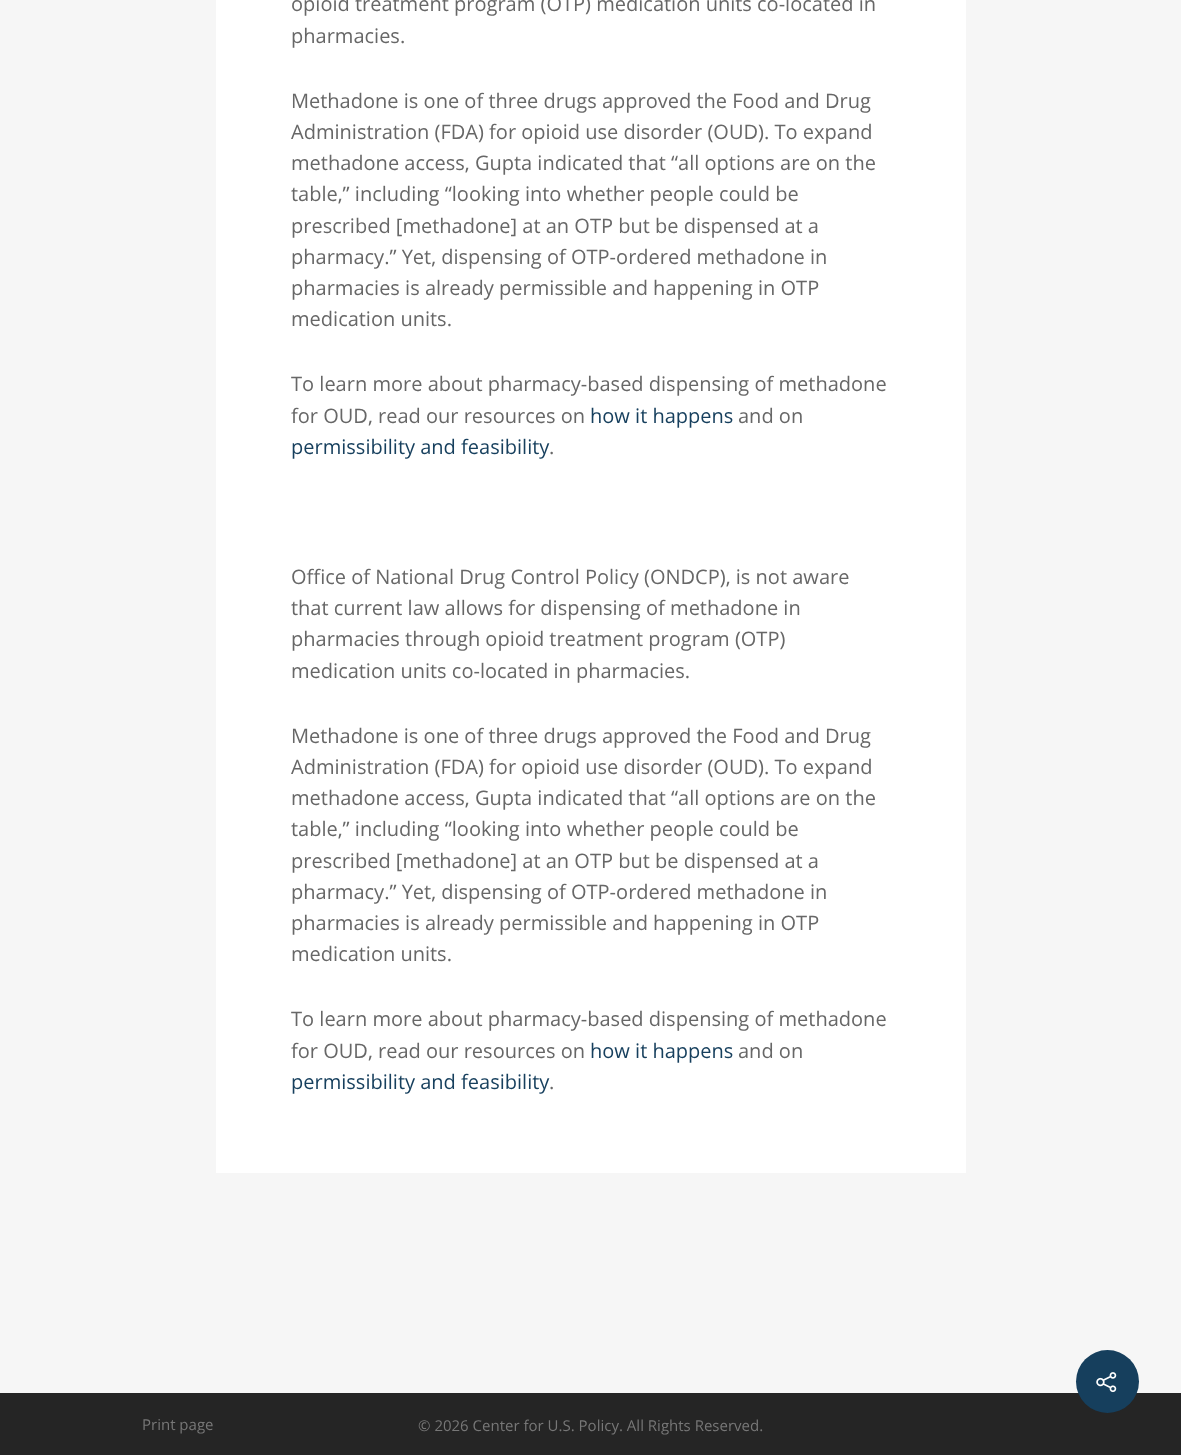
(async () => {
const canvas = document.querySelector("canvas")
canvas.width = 1181
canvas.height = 1455
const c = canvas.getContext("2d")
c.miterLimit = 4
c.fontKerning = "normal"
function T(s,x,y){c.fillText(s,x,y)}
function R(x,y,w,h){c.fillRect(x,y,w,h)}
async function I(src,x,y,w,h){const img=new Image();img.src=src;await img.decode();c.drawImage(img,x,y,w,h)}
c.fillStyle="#252525"
R(0,0,1181,1455)
c.fillStyle="#f6f6f6"
R(0,0,1181,1393)
c.fillStyle="#fff"
R(216,0,750,1173)
c.font="20px Open Sans"
c.fillStyle="#676767"
T("opioid treatment program (OTP) medication units co-located in",291,11)
T("pharmacies.",291,43)
T("Methadone is one of three drugs approved the Food and Drug",291,108)
T("Administration (FDA) for opioid use disorder (OUD). To expand",291,139)
T("methadone access, Gupta indicated that “all options are on the",291,170)
T("table,” including “looking into whether people could be",291,201)
T("prescribed [methadone] at an OTP but be dispensed at a",291,233)
T("pharmacy.” Yet, dispensing of OTP-ordered methadone in",291,264)
T("pharmacies is already permissible and happening in OTP",291,295)
T("medication units.",291,326)
T("To learn more about pharmacy-based dispensing of methadone",291,391)
T("for OUD, read our resources on",291,423)
c.fillStyle="#163f5d"
T("how it happens",590,423)
c.fillStyle="#676767"
T("and on",738,423)
c.fillStyle="#163f5d"
T("permissibility and feasibility",291,454)
c.fillStyle="#676767"
T(".",549,454)
T("Office of National Drug Control Policy (ONDCP), is not aware",291,584)
T("that current law allows for dispensing of methadone in",291,615)
T("pharmacies through opioid treatment program (OTP)",291,646)
T("medication units co-located in pharmacies.",291,678)
T("Methadone is one of three drugs approved the Food and Drug",291,743)
T("Administration (FDA) for opioid use disorder (OUD). To expand",291,774)
T("methadone access, Gupta indicated that “all options are on the",291,805)
T("table,” including “looking into whether people could be",291,836)
T("prescribed [methadone] at an OTP but be dispensed at a",291,868)
T("pharmacy.” Yet, dispensing of OTP-ordered methadone in",291,899)
T("pharmacies is already permissible and happening in OTP",291,930)
T("medication units.",291,961)
T("To learn more about pharmacy-based dispensing of methadone",291,1026)
T("for OUD, read our resources on",291,1058)
c.fillStyle="#163f5d"
T("how it happens",590,1058)
c.fillStyle="#676767"
T("and on",738,1058)
c.fillStyle="#163f5d"
T("permissibility and feasibility",291,1089)
c.fillStyle="#676767"
T(".",549,1089)
c.fillStyle="#163f5d"
c.beginPath()
c.arc(1107.5,1381.5,31.5,0,7)
c.fill()
await I("1.png",1096,1372,21,21)
c.font="15px Open Sans"
c.fillStyle="#777"
T("Print page",142,1430)
T("© 2026 Center for U.S. Policy. All Rights Reserved.",418,1431)
})()
